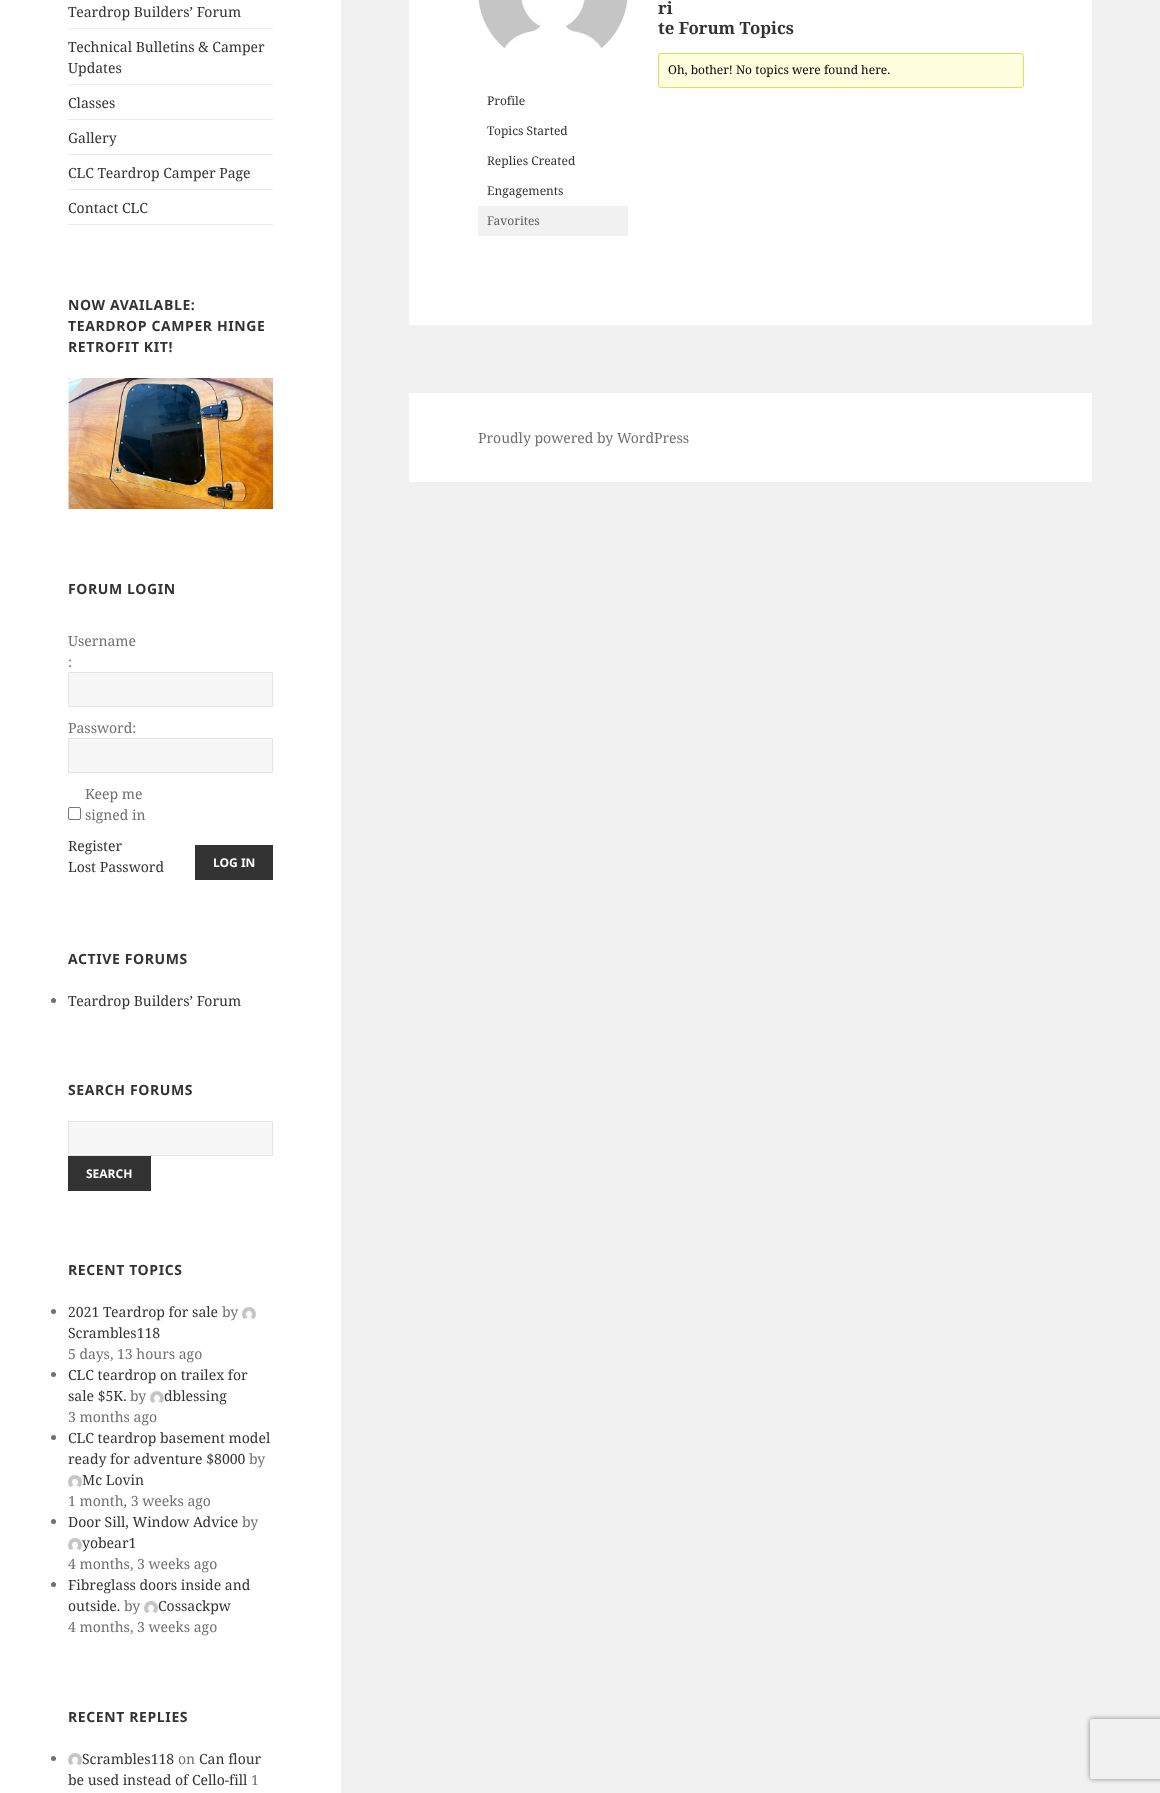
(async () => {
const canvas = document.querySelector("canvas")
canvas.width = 1160
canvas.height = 1793
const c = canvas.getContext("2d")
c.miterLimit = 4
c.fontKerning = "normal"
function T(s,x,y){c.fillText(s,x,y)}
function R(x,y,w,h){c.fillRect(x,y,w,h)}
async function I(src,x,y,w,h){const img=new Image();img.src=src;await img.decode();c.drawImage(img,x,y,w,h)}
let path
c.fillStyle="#f1f1f1"
R(0,0,1160,1793)
c.fillStyle="#fff"
R(0,0,341,1793)
c.fillStyle="#ebebeb"
R(68,224,205,1)
c.font="14px Noto Serif"
c.fillStyle="#333"
T("Teardrop Builders’ Forum",68,17)
c.fillStyle="#ebebeb"
R(68,28,205,1)
c.fillStyle="#333"
T("Technical Bulletins & Camper",68,52)
T("Updates",68,73)
c.fillStyle="#ebebeb"
R(68,84,205,1)
c.fillStyle="#333"
T("Classes",68,108)
c.fillStyle="#ebebeb"
R(68,119,205,1)
c.fillStyle="#333"
T("Gallery",68,143)
c.fillStyle="#ebebeb"
R(68,154,205,1)
c.fillStyle="#333"
T("CLC Teardrop Camper Page",68,178)
c.fillStyle="#ebebeb"
R(68,189,205,1)
c.fillStyle="#333"
T("Contact CLC",68,213)
c.letterSpacing="0.6px"
c.font="bold 14px Noto Sans"
T("NOW AVAILABLE:",68,310)
T("TEARDROP CAMPER HINGE",68,331)
T("RETROFIT KIT!",68,352)
await I("1.png",68,378,205,131)
T("FORUM LOGIN",68,594)
c.letterSpacing="0px"
c.font="14px Noto Serif"
c.fillStyle="#707070"
T("Username",68,646)
T(":",68,667)
c.fillStyle="#f7f7f7"
c.beginPath()
c.rect(68.5,672.5,204,34)
c.fill()
c.strokeStyle="#e3e3e3"
c.stroke()
c.fillStyle="#707070"
T("Password:",68,733)
c.fillStyle="#f7f7f7"
c.beginPath()
c.rect(68.5,738.5,204,34)
c.fill()
c.stroke()
c.beginPath()
c.roundRect(68.5,807.5,12,12,1.5)
c.strokeStyle="#767676"
c.stroke()
c.fillStyle="#707070"
T("Keep me",85,799)
T("signed in",85,820)
c.fillStyle="#333"
T("Register",68,851)
T("Lost Password",68,872)
R(195,845,78,35)
c.font="bold 12px Noto Sans"
c.fillStyle="#fff"
T("LOG IN",213,867)
c.letterSpacing="0.6px"
c.font="bold 14px Noto Sans"
c.fillStyle="#333"
T("ACTIVE FORUMS",68,964)
c.fillStyle="#707070"
c.beginPath()
c.arc(53.5,1000.5,2.5,0,7)
c.fill()
c.letterSpacing="0px"
c.font="14px Noto Serif"
c.fillStyle="#333"
T("Teardrop Builders’ Forum",68,1006)
c.letterSpacing="0.6px"
c.font="bold 14px Noto Sans"
T("SEARCH FORUMS",68,1095)
c.fillStyle="#f7f7f7"
c.beginPath()
c.rect(68.5,1121.5,204,34)
c.fill()
c.strokeStyle="#e3e3e3"
c.stroke()
c.fillStyle="#333"
R(68,1156,83,35)
c.letterSpacing="0px"
c.font="bold 12px Noto Sans"
c.fillStyle="#fff"
T("SEARCH",86,1178)
c.letterSpacing="0.6px"
c.font="bold 14px Noto Sans"
c.fillStyle="#333"
T("RECENT TOPICS",68,1275)
c.fillStyle="#707070"
c.beginPath()
c.arc(53.5,1311.5,2.5,0,7)
c.fill()
c.letterSpacing="0px"
c.font="14px Noto Serif"
c.fillStyle="#333"
T("2021 Teardrop for sale",68,1317)
c.fillStyle="#707070"
T("by",222,1317)
await I("2.png",242,1307,14,14)
c.fillStyle="#333"
T("Scrambles118",68,1338)
c.fillStyle="#707070"
T("5 days, 13 hours ago",68,1359)
c.beginPath()
c.arc(53.5,1374.5,2.5,0,7)
c.fill()
c.fillStyle="#333"
T("CLC teardrop on trailex for",68,1380)
T("sale $5K.",68,1401)
c.fillStyle="#707070"
T("by",130,1401)
await I("3.png",150,1391,14,14)
c.fillStyle="#333"
T("dblessing",164,1401)
c.fillStyle="#707070"
T("3 months ago",68,1422)
c.beginPath()
c.arc(53.5,1437.5,2.5,0,7)
c.fill()
c.fillStyle="#333"
T("CLC teardrop basement model",68,1443)
T("ready for adventure $8000",68,1464)
c.fillStyle="#707070"
T("by",249,1464)
await I("3.png",68,1475,14,14)
c.fillStyle="#333"
T("Mc Lovin",82,1485)
c.fillStyle="#707070"
T("1 month, 3 weeks ago",68,1506)
c.beginPath()
c.arc(53.5,1521.5,2.5,0,7)
c.fill()
c.fillStyle="#333"
T("Door Sill, Window Advice",68,1527)
c.fillStyle="#707070"
T("by",242,1527)
await I("3.png",68,1538,14,14)
c.fillStyle="#333"
T("yobear1",82,1548)
c.fillStyle="#707070"
T("4 months, 3 weeks ago",68,1569)
c.beginPath()
c.arc(53.5,1584.5,2.5,0,7)
c.fill()
c.fillStyle="#333"
T("Fibreglass doors inside and",68,1590)
T("outside.",68,1611)
c.fillStyle="#707070"
T("by",124,1611)
await I("3.png",144,1601,14,14)
c.fillStyle="#333"
T("Cossackpw",158,1611)
c.fillStyle="#707070"
T("4 months, 3 weeks ago",68,1632)
c.letterSpacing="0.6px"
c.font="bold 14px Noto Sans"
c.fillStyle="#333"
T("RECENT REPLIES",68,1722)
c.fillStyle="#707070"
c.beginPath()
c.arc(53.5,1758.5,2.5,0,7)
c.fill()
await I("3.png",68,1753,14,14)
c.letterSpacing="0px"
c.font="14px Noto Serif"
c.fillStyle="#333"
T("Scrambles118",82,1764)
c.fillStyle="#707070"
T("on",178,1764)
c.fillStyle="#333"
T("Can flour",199,1764)
T("be used instead of Cello-fill",68,1785)
c.fillStyle="#707070"
T("1",251,1785)
c.fillStyle="#fff"
R(409,0,683,325)
c.font="bold 16.75px Noto Serif"
c.fillStyle="#333"
T("ri",658,14)
T("te Forum Topics",658,34)
c.fillStyle="#ffffe0"
c.beginPath()
c.roundRect(658.5,53.5,365,34,2.5)
c.fill()
c.strokeStyle="#e6db55"
c.stroke()
c.font="12px Noto Serif"
c.fillStyle="#000"
T("Oh, bother! No topics were found here.",668,74)
await I("4.png",478,0,150,50)
c.fillStyle="#333"
T("Profile",487,105)
T("Topics Started",487,135)
T("Replies Created",487,165)
T("Engagements",487,195)
c.fillStyle="#f1f1f1"
R(478,206,150,30)
c.fillStyle="#5c5c5c"
T("Favorites",487,225)
c.fillStyle="#fff"
R(409,393,683,89)
c.font="14px Noto Serif"
c.fillStyle="#707070"
T("Proudly powered by WordPress",478,443)
c.save()
path = new Path2D("M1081 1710h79v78h-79zm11 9h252c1 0 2 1 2 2v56c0 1-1 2-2 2h-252c-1 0-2-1-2-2v-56c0-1 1-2 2-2z")
c.clip(path,"evenodd")
c.fillStyle="#808080"
c.filter="blur(2.5px)"
c.beginPath()
c.roundRect(1090,1719,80,60,2)
c.fill()
c.filter="none"
c.restore()
})()
